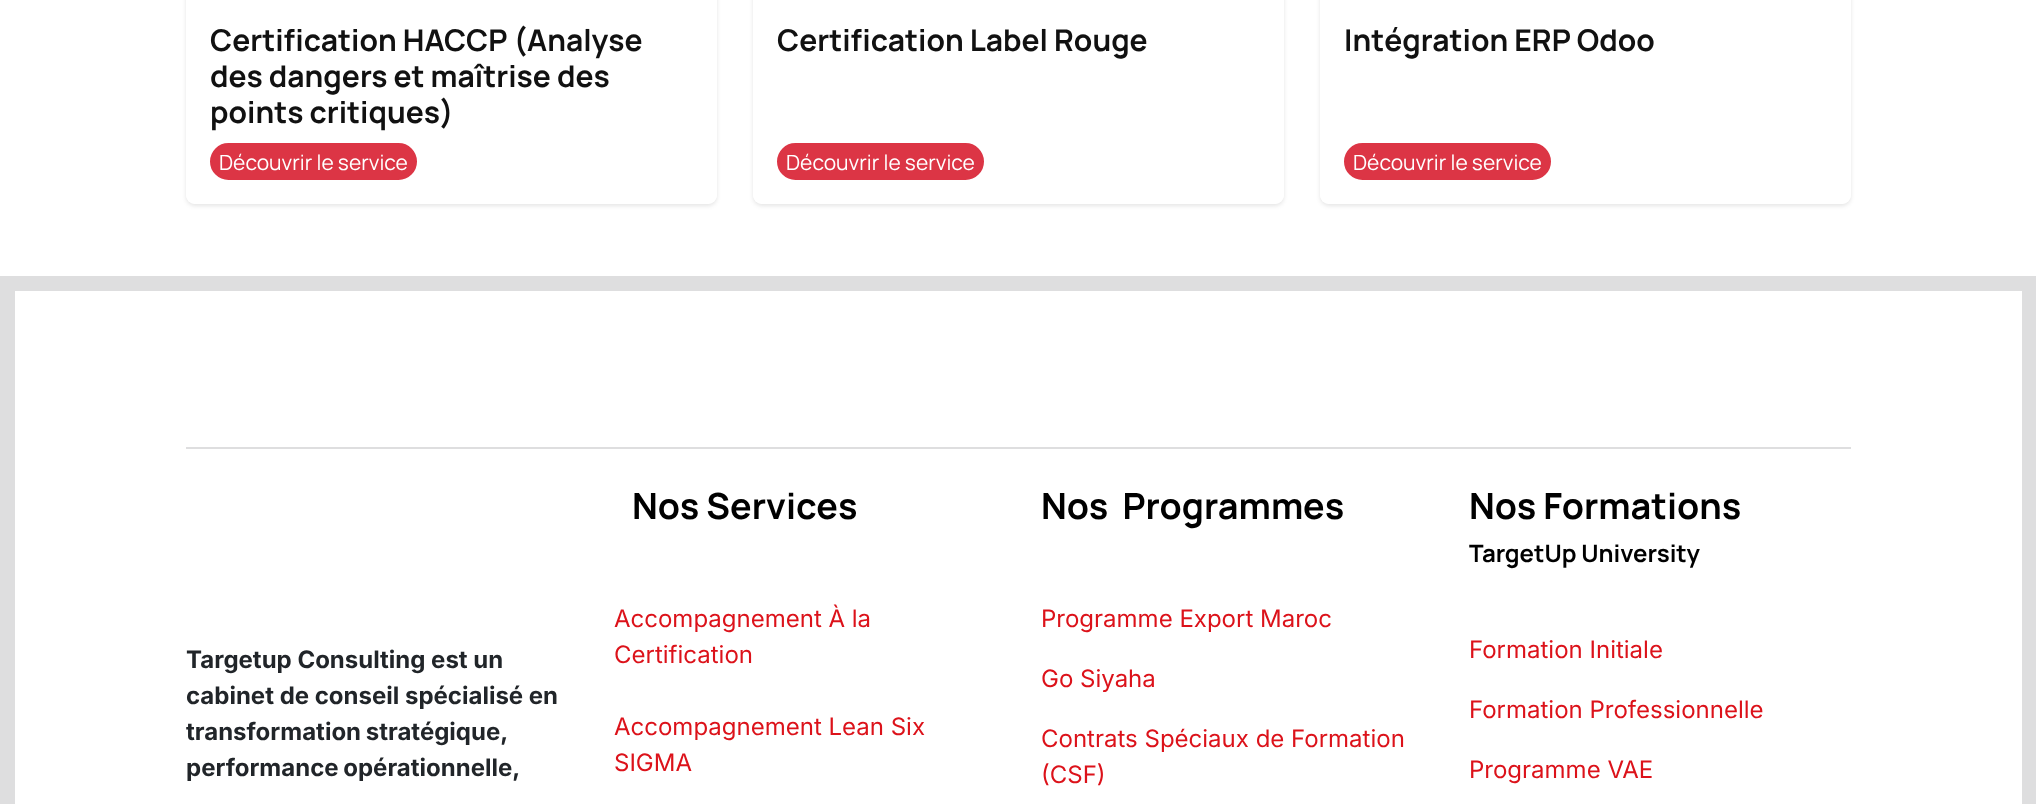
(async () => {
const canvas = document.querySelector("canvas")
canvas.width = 2036
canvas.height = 804
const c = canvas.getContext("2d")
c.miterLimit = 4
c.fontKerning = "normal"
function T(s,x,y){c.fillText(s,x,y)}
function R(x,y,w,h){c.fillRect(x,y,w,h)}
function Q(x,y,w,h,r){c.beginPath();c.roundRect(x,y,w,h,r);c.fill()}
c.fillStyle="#fff"
R(0,0,2036,804)
c.fillStyle="#0000001a"
c.filter="blur(2px)"
c.beginPath()
c.roundRect(186,-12,531,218,9)
c.fill()
c.filter="none"
c.fillStyle="#fff"
Q(186,-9,531,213,9)
c.fillStyle="#ffffffe6"
Q(186,-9,531,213,9)
c.font="bold 30px Manrope"
c.fillStyle="#111"
T("Certification HACCP (Analyse",210,51)
T("des dangers et maîtrise des",210,87)
T("points critiques)",210,123)
c.fillStyle="#dc3545"
c.beginPath()
c.roundRect(211,144,205,35,17.5)
c.fill()
c.strokeStyle="#dc3545"
c.lineWidth=2
c.stroke()
c.font="21px Manrope"
c.fillStyle="#fff"
T("Découvrir le service",219,170)
c.fillStyle="#0000001a"
c.filter="blur(2px)"
c.beginPath()
c.roundRect(753,-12,531,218,9)
c.fill()
c.filter="none"
c.fillStyle="#fff"
Q(753,-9,531,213,9)
c.fillStyle="#ffffffe6"
Q(753,-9,531,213,9)
c.font="bold 30px Manrope"
c.fillStyle="#111"
T("Certification Label Rouge",777,51)
c.fillStyle="#dc3545"
c.beginPath()
c.roundRect(778,144,205,35,17.5)
c.fill()
c.stroke()
c.font="21px Manrope"
c.fillStyle="#fff"
T("Découvrir le service",786,170)
c.fillStyle="#0000001a"
c.filter="blur(2px)"
c.beginPath()
c.roundRect(1320,-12,531,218,9)
c.fill()
c.filter="none"
c.fillStyle="#fff"
Q(1320,-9,531,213,9)
c.fillStyle="#ffffffe6"
Q(1320,-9,531,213,9)
c.font="bold 30px Manrope"
c.fillStyle="#111"
T("Intégration ERP Odoo",1344,51)
c.fillStyle="#dc3545"
c.beginPath()
c.roundRect(1345,144,205,35,17.5)
c.fill()
c.stroke()
c.font="21px Manrope"
c.fillStyle="#fff"
T("Découvrir le service",1353,170)
c.strokeStyle="#dededf"
c.lineWidth=15
c.strokeRect(7.5,283.5,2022,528)
c.fillStyle="#dededf"
R(186,447,1665,2)
c.font="bold 24px Inter"
c.fillStyle="#212529"
T("Targetup Consulting est un",186,668)
T("cabinet de conseil spécialisé en",186,704)
c.wordSpacing="-1px"
T("transformation stratégique,",186,740)
T("performance opérationnelle,",186,776)
c.wordSpacing="0px"
c.font="bold 36px Manrope"
c.fillStyle="#000"
T("Nos Services",632,519)
c.font="24px Inter"
c.fillStyle="#dc121a"
T("Accompagnement À la",614,627)
T("Certification",614,663)
T("Accompagnement Lean Six",614,735)
T("SIGMA",614,771)
c.font="bold 36px Manrope"
c.fillStyle="#000"
T("Nos  Programmes",1041,519)
c.font="24px Inter"
c.fillStyle="#dc121a"
T("Programme Export Maroc",1041,627)
T("Go Siyaha",1041,687)
T("Contrats Spéciaux de Formation",1041,747)
T("(CSF)",1041,783)
c.font="bold 36px Manrope"
c.fillStyle="#000"
T("Nos Formations",1469,519)
c.font="bold 24px Manrope"
T("TargetUp University",1469,562)
c.font="24px Inter"
c.fillStyle="#dc121a"
T("Formation Initiale",1469,658)
T("Formation Professionnelle",1469,718)
T("Programme VAE",1469,778)
})()
